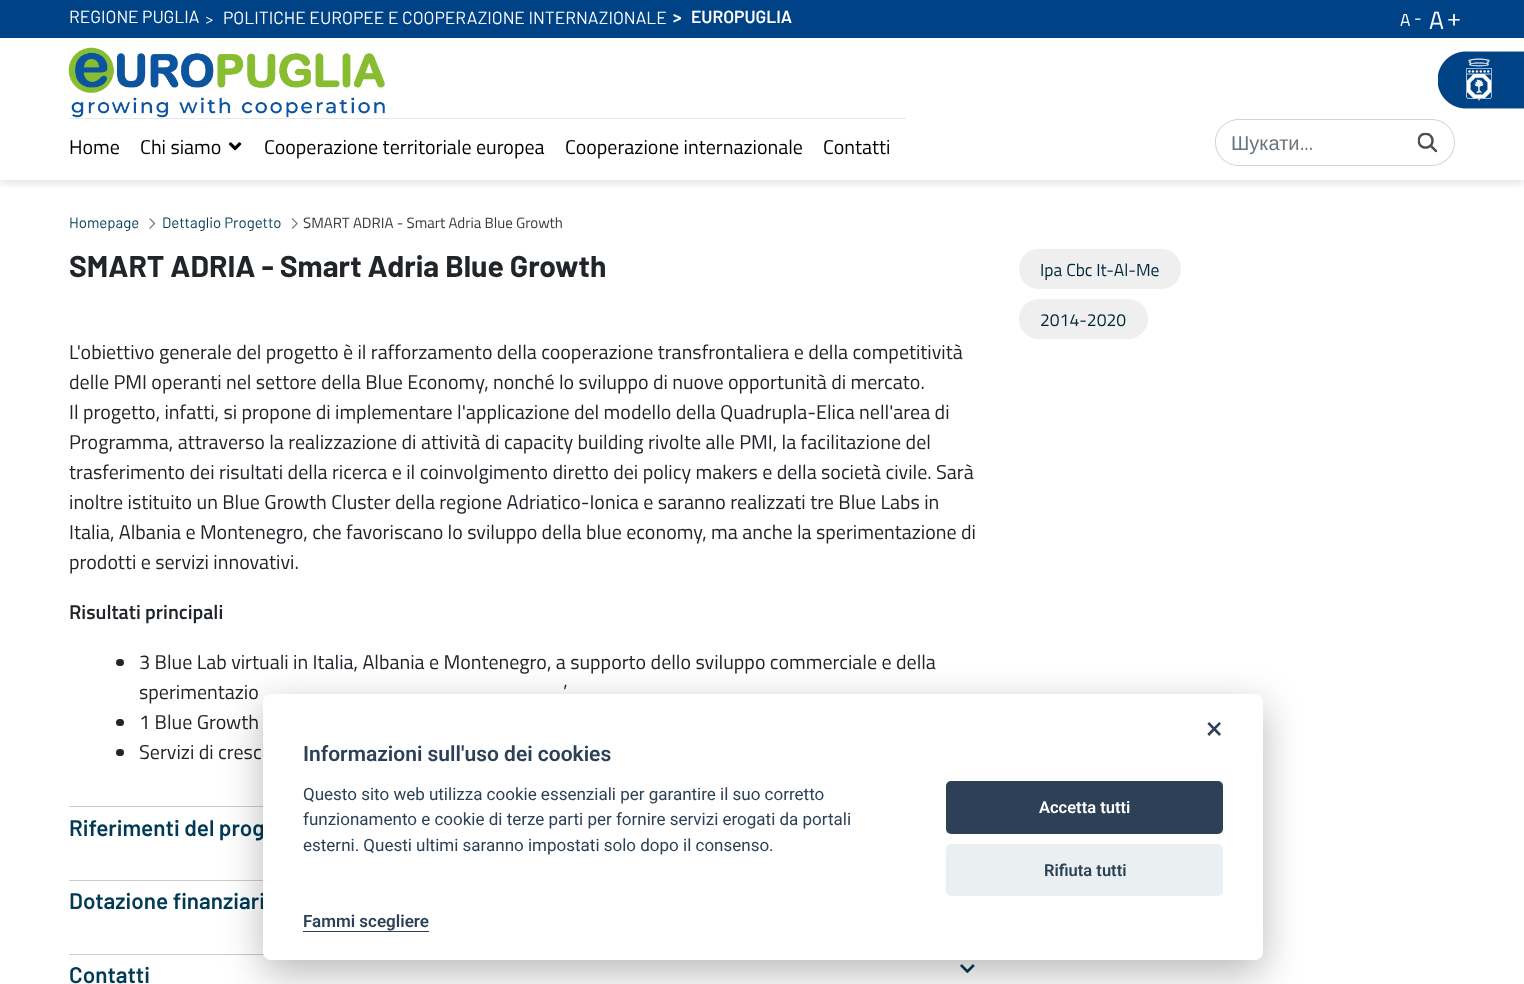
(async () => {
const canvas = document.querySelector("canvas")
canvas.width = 1524
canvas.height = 984
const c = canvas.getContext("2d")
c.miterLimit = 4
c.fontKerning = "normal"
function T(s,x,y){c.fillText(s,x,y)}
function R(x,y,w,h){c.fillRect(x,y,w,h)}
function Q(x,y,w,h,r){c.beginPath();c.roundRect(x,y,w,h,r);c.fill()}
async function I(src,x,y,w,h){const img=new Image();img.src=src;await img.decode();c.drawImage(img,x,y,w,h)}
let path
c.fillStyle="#fff"
R(0,0,1524,984)
c.save()
c.beginPath()
c.rect(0,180,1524,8)
c.clip()
c.fillStyle="#00000029"
c.filter="blur(6px)"
c.beginPath()
c.rect(0,1,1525,180)
c.fill()
c.filter="none"
c.restore()
c.fillStyle="#004286"
R(0,0,1524,38)
c.font="17.5px Barlow"
c.fillStyle="#fff"
T("REGIONE PUGLIA",69,23)
c.font="15px Titillium Web"
T(">",205,24)
c.font="17.5px Barlow"
T("POLITICHE EUROPEE E COOPERAZIONE INTERNAZIONALE",223,24)
c.font="600 17.5px Barlow"
T(">",673,23)
T("EUROPUGLIA",691,23)
c.font="17.5px Titillium Web"
T("A",1400,26)
T("-",1414,24)
c.font="25px Titillium Web"
T("A",1429,29)
T("+",1447,26)
await I("1.png",68,47,317,71)
await I("2.png",1438,51,86,58)
c.fillStyle="#e6e6e6"
R(69,118,837,1)
c.font="20px Titillium Web"
c.fillStyle="#000"
T("Home",69,154)
T("Chi siamo",140,154)
await I("3.png",228,142,14,9)
T("Cooperazione territoriale europea",264,154)
T("Cooperazione internazionale",565,154)
T("Contatti",823,154)
c.fillStyle="#ced4da"
path = new Path2D("M1239 119h162v47h-162c-13 0-24-10-24-24c0-13 11-23 24-23zm0 1h162v45h-162c-13 0-23-10-23-23c0-12 10-22 23-22z")
c.fill(path,"evenodd")
c.font="20px Liberation Sans"
c.fillStyle="#6c757d"
T("Шукати",1231,150)
c.font="20px Titillium Web"
T("...",1300,150)
c.fillStyle="#ced4da"
path = new Path2D("M1401 119h30c13 0 24 10 24 23c0 14-11 24-24 24h-30zm0 1h30c13 0 23 10 23 22c0 13-10 23-23 23h-30z")
c.fill(path,"evenodd")
await I("4.png",1417,132,21,21)
c.font="15px Barlow"
c.fillStyle="#003a54"
T("Homepage",69,228)
await I("5.png",149,218,7,11)
T("Dettaglio Progetto",162,228)
await I("6.png",291,218,7,11)
c.font="15px Titillium Web"
c.fillStyle="#3a3a3a"
T("SMART ADRIA - Smart Adria Blue Growth",303,228)
c.font="bold 30px Barlow"
c.fillStyle="#212529"
T("SMART ADRIA - Smart Adria Blue Growth",69,277)
c.font="20px Titillium Web"
T("L'obiettivo generale del progetto è il rafforzamento della cooperazione transfrontaliera e della competitività",69,359)
T("delle PMI operanti nel settore della Blue Economy, nonché lo sviluppo di nuove opportunità di mercato.",69,389)
T("Il progetto, infatti, si propone di implementare l'applicazione del modello della Quadrupla-Elica nell'area di",69,419)
T("Programma, attraverso la realizzazione di attività di capacity building rivolte alle PMI, la facilitazione del",69,449)
T("trasferimento dei risultati della ricerca e il coinvolgimento diretto dei policy makers e della società civile. Sarà",69,479)
T("inoltre istituito un Blue Growth Cluster della regione Adriatico-Ionica e saranno realizzati tre Blue Labs in",69,509)
T("Italia, Albania e Montenegro, che favoriscano lo sviluppo della blue economy, ma anche la sperimentazione di",69,539)
T("prodotti e servizi innovativi.",69,569)
c.font="600 20px Titillium Web"
T("Risultati principali",69,619)
Q(116,659,8,7,3.5)
c.font="20px Titillium Web"
T("3 Blue Lab virtuali in Italia, Albania e Montenegro, a supporto dello sviluppo commerciale e della",139,669)
T("sperimentazio",139,699)
T("’",563,699)
Q(116,719,8,7,3.5)
T("1 Blue Growth",139,729)
Q(116,749,8,7,3.5)
T("Servizi di cresc",139,759)
c.fillStyle="#ccc"
R(69,806,194,1)
c.font="600 22.5px Barlow"
c.fillStyle="#003a54"
T("Riferimenti del prog",69,836)
c.fillStyle="#ccc"
R(69,880,194,1)
c.fillStyle="#003a54"
T("Dotazione finanziari",69,909)
c.fillStyle="#ccc"
R(69,954,195,1)
c.fillStyle="#003a54"
T("Contatti",69,983)
await I("7.png",960,964,15,9)
c.fillStyle="#efefef"
Q(1019,249,162,40,20)
c.font="17.5px Titillium Web"
c.fillStyle="#01283a"
T("Ipa Cbc It-Al-Me",1040,276)
c.fillStyle="#efefef"
Q(1019,299,129,40,20)
c.fillStyle="#01283a"
T("2014-2020",1040,326)
c.fillStyle="#02020347"
c.filter="blur(19px)"
c.beginPath()
c.roundRect(263,706,1000,267,8)
c.fill()
c.filter="none"
c.fillStyle="#fff"
Q(263,694,1000,266,8)
c.font="31px Roboto"
c.fillStyle="#2d4156"
T("×",1206,739)
c.font="600 21px Roboto"
T("Informazioni sull'uso dei cookies",303,761)
c.font="17px Roboto"
T("Questo sito web utilizza cookie essenziali per garantire il suo corretto",303,800)
T("funzionamento e cookie di terze parti per fornire servizi erogati da portali",303,825)
T("esterni. Questi ultimi saranno impostati solo dopo il consenso.",303,851)
c.font="600 17px Roboto"
T("Fammi scegliere",303,927)
R(303,931,126,1)
Q(946,781,277,53,5)
c.font="600 16.5px Roboto"
c.fillStyle="#fff"
T("Accetta tutti",1039,813)
c.fillStyle="#eaeff2"
Q(946,844,277,52,5)
c.fillStyle="#2d4156"
T("Rifiuta tutti",1044,876)
})()
